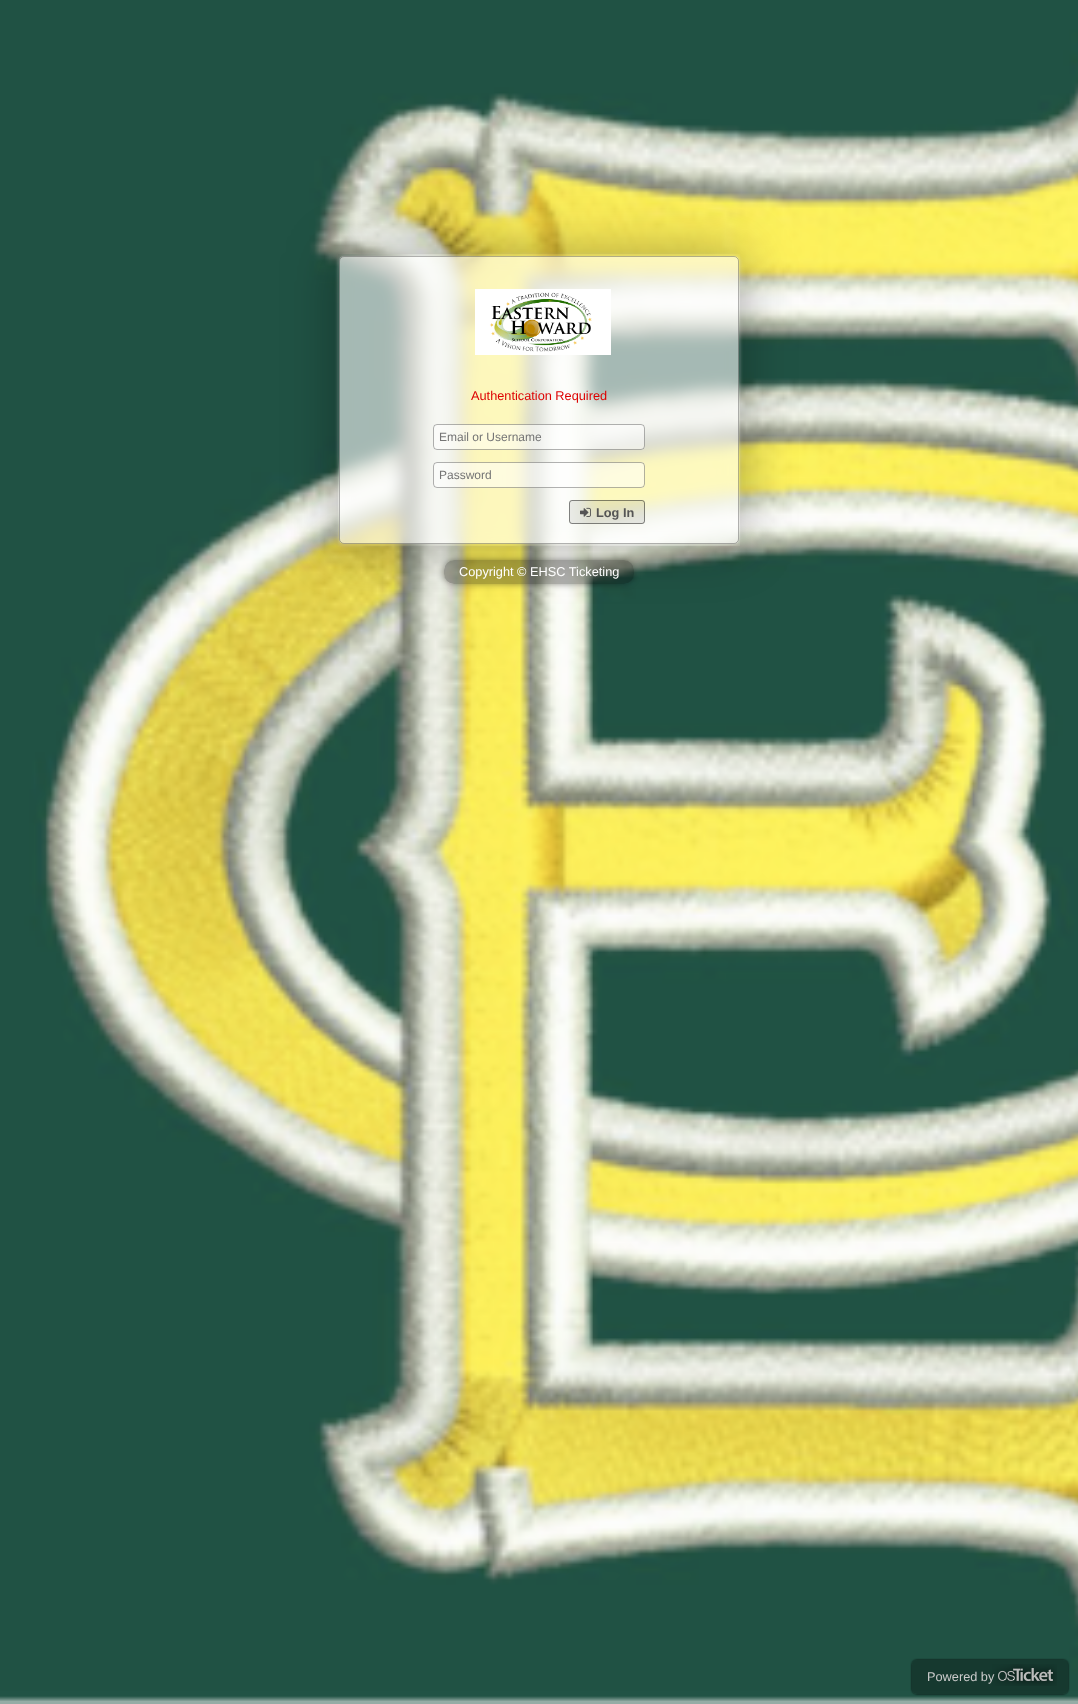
(async () => {
const canvas = document.querySelector("canvas")
canvas.width = 1078
canvas.height = 1704
const c = canvas.getContext("2d")
c.miterLimit = 4
c.fontKerning = "normal"
function T(s,x,y){c.fillText(s,x,y)}
function R(x,y,w,h){c.fillRect(x,y,w,h)}
function Q(x,y,w,h,r){c.beginPath();c.roundRect(x,y,w,h,r);c.fill()}
async function I(src,x,y,w,h){const img=new Image();img.src=src;await img.decode();c.drawImage(img,x,y,w,h)}
let path
c.fillStyle="#fff"
R(0,0,1078,1704)
await I("1.png",0,0,1078,1704)
c.save()
path = new Path2D("M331 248h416v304h-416zm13 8h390c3 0 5 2 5 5v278c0 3-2 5-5 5h-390c-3 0-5-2-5-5v-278c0-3 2-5 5-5z")
c.clip(path,"evenodd")
c.filter="blur(2.5px)"
c.beginPath()
c.roundRect(340,257,398,286,4)
c.fill()
c.filter="none"
c.restore()
c.save()
path = new Path2D("M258 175h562v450h-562zm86 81h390c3 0 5 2 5 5v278c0 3-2 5-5 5h-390c-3 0-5-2-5-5v-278c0-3 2-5 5-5z")
c.clip(path,"evenodd")
c.fillStyle="#0000004d"
c.filter="blur(25px)"
c.beginPath()
c.roundRect(334,251,410,298,10)
c.fill()
c.filter="none"
c.restore()
await I("2.png",338,254,402,292)
c.fillStyle="#ffffff99"
Q(339,256,400,288,5)
c.beginPath()
c.roundRect(339.5,256.5,399,287,4.5)
c.strokeStyle="#0000004d"
c.stroke()
await I("3.png",475,289,136,66)
c.font="12.75px Liberation Sans"
c.fillStyle="#d00"
T("Authentication Required",471,400)
c.fillStyle="#ffffff80"
Q(433,424,212,26,4)
c.beginPath()
c.roundRect(433.5,424.5,211,25,3.5)
c.stroke()
c.font="12px Liberation Sans"
c.fillStyle="#757575"
T("Email or Username",439,441)
c.fillStyle="#ffffff80"
Q(433,462,212,26,4)
c.beginPath()
c.roundRect(433.5,462.5,211,25,3.5)
c.stroke()
c.fillStyle="#757575"
T("Password",439,479)
c.fillStyle="#00000012"
Q(569,500,76,24,3)
c.beginPath()
c.roundRect(569.5,500.5,75,23,2.5)
c.strokeStyle="#00000073"
c.stroke()
await I("4.png",580,507,11,10)
c.font="bold 12.75px Liberation Sans"
c.fillStyle="#555"
T("Log In",596,517)
c.save()
path = new Path2D("M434 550h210v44h-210zm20 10h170c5.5 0 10 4.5 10 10v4c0 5.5-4.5 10-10 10h-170c-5.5 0-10-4.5-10-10v-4c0-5.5 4.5-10 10-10z")
c.clip(path,"evenodd")
c.fillStyle="#00000066"
c.filter="blur(3px)"
c.beginPath()
c.roundRect(444,560,190,24,10)
c.fill()
c.filter="none"
c.restore()
c.fillStyle="#0000004d"
Q(444,560,190,24,10)
c.font="12.75px Liberation Sans"
c.fillStyle="#fff"
T("Copyright © EHSC Ticketing",459,576)
c.save()
path = new Path2D("M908 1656h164v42h-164zm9 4h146c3 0 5 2 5 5v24c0 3-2 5-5 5h-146c-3 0-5-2-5-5v-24c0-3 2-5 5-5z")
c.clip(path,"evenodd")
c.fillStyle="#000"
c.filter="blur(1px)"
c.beginPath()
c.roundRect(912,1660,156,34,5)
c.fill()
c.filter="none"
c.restore()
c.fillStyle="#0000004d"
Q(912,1660,156,34,5)
c.fillStyle="#ccc"
T("Powered by",927,1681)
await I("5.png",992,1664,65,22)
})()
